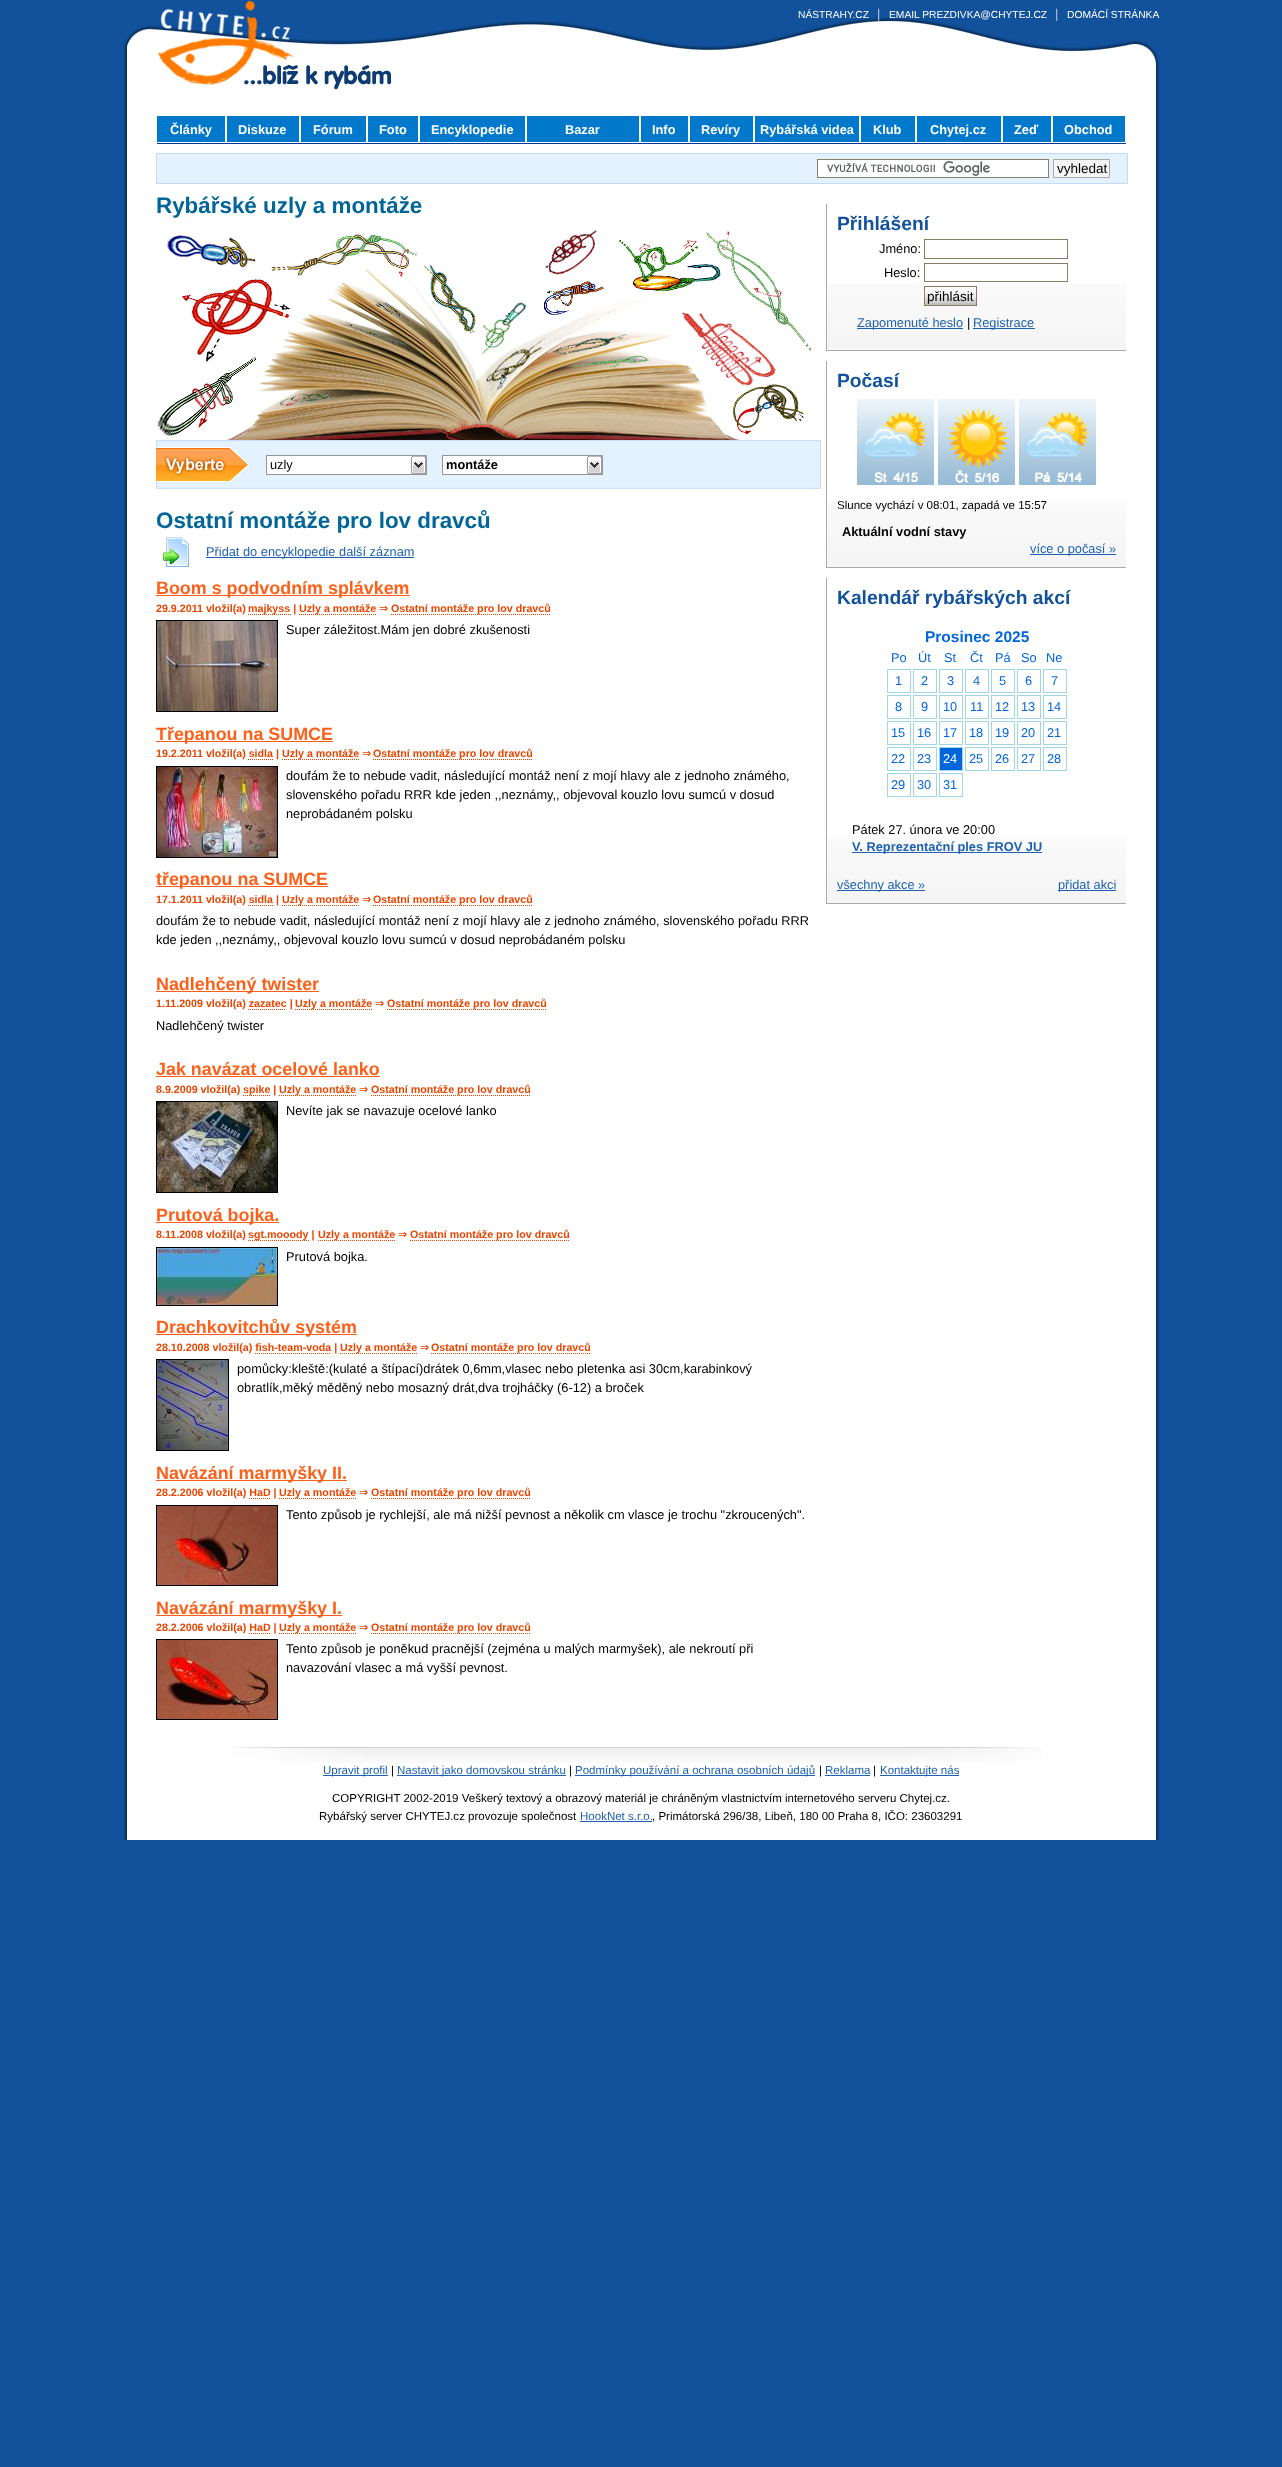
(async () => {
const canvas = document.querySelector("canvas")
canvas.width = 1282
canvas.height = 2467
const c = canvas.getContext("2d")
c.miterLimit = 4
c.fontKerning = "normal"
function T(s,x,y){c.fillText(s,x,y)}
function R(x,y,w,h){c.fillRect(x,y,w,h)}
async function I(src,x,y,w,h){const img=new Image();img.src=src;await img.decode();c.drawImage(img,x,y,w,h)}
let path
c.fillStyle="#12529c"
R(0,0,1282,2467)
await I("1.png",123,0,1037,153)
c.font="10.25px Liberation Sans"
c.fillStyle="#fff"
T("NÁSTRAHY.CZ",798,18)
c.font="12.8px Liberation Sans"
c.fillStyle="#b6c4d4"
T("|",877,18)
c.font="10.25px Liberation Sans"
c.fillStyle="#fff"
T("EMAIL PREZDIVKA@CHYTEJ.CZ",889,18)
c.font="12.8px Liberation Sans"
c.fillStyle="#b6c4d4"
T("|",1055,18)
c.font="10.25px Liberation Sans"
c.fillStyle="#fff"
T("DOMÁCÍ STRÁNKA",1067,18)
c.fillStyle="#0078cc"
R(157,116,68,26)
c.font="bold 12.8px Liberation Sans"
c.fillStyle="#fff"
T("Články",170,134)
c.fillStyle="#0078cc"
R(227,116,72,26)
c.fillStyle="#fff"
T("Diskuze",238,134)
c.fillStyle="#0078cc"
R(301,116,65,26)
c.fillStyle="#fff"
T("Fórum",313,134)
c.fillStyle="#0078cc"
R(368,116,50,26)
c.fillStyle="#fff"
T("Foto",379,134)
c.fillStyle="#0078cc"
R(420,116,105,26)
c.fillStyle="#fff"
T("Encyklopedie",431,134)
c.fillStyle="#0078cc"
R(527,116,112,26)
c.fillStyle="#fff"
T("Bazar",565,134)
c.fillStyle="#0078cc"
R(641,116,47,26)
c.fillStyle="#fff"
T("Info",652,134)
c.fillStyle="#0078cc"
R(690,116,63,26)
c.fillStyle="#fff"
T("Revíry",701,134)
c.fillStyle="#0078cc"
R(755,116,104,26)
c.fillStyle="#fff"
T("Rybářská videa",760,134)
c.fillStyle="#0078cc"
R(861,116,54,26)
c.fillStyle="#fff"
T("Klub",873,134)
c.fillStyle="#0078cc"
R(917,116,84,26)
c.fillStyle="#fff"
T("Chytej.cz",930,134)
c.fillStyle="#0078cc"
R(1003,116,48,26)
c.fillStyle="#fff"
T("Zeď",1014,134)
c.fillStyle="#0078cc"
R(1053,116,72,26)
c.fillStyle="#fff"
T("Obchod",1064,134)
c.fillStyle="#043896"
R(157,143,969,1)
await I("2.png",123,153,1037,1687)
c.fillStyle="#e4f1ff"
c.beginPath()
c.rect(156.5,153.5,971,30)
c.fill()
c.strokeStyle="#c3dbf7"
c.stroke()
c.fillStyle="#fff"
R(818,160,230,17)
await I("3.png",827,161,163,15)
c.strokeStyle="#897d63"
c.strokeRect(817.5,159.5,231,18)
c.fillStyle="#f5f5f5"
c.beginPath()
c.rect(1053.5,159.5,56,18)
c.fill()
c.strokeStyle="#aaa"
c.stroke()
c.font="13.5px Liberation Sans"
c.fillStyle="#000"
T("vyhledat",1057,173)
await I("4.png",157,230,654,210)
c.font="bold 22.4px Liberation Sans"
c.fillStyle="#006599"
T("Rybářské uzly a montáže",156,213)
await I("5.png",156,440,666,49)
await I("6.png",267,455,160,20)
c.fillStyle="#969696"
R(266,455,1,20)
c.font="12.8px Liberation Sans"
c.fillStyle="#000"
T("uzly",270,469)
await I("6.png",443,455,160,20)
c.fillStyle="#969696"
R(442,455,1,20)
c.font="bold 12.8px Liberation Sans"
c.fillStyle="#000"
T("montáže",446,469)
c.font="bold 22.4px Liberation Sans"
c.fillStyle="#006599"
T("Ostatní montáže pro lov dravců",156,528)
await I("7.png",163,537,27,30)
c.fillStyle="#1d61b2"
R(206,557,208,1)
c.font="12.8px Liberation Sans"
T("Přidat do encyklopedie další záznam",206,556)
c.fillStyle="#fe6019"
R(156,595,254,1)
c.font="bold 17.9px Liberation Sans"
T("Boom s podvodním splávkem",156,594)
c.font="bold 10.7px Liberation Sans"
c.fillStyle="#e84500"
T("29.9.2011 vložil(a)",156,612)
path = new Path2D("M248 614.5h43")
c.strokeStyle="#e84500"
c.setLineDash([1,1])
c.stroke(path)
T("majkyss |",248,612)
path = new Path2D("M299 614.5h77")
c.stroke(path)
T("Uzly a montáže",299,612)
c.font="bold 10.7px DejaVu Sans"
T("⇒",379,612)
path = new Path2D("M391 614.5h160")
c.stroke(path)
c.font="bold 10.7px Liberation Sans"
T("Ostatní montáže pro lov dravců",391,612)
c.strokeStyle="#000"
c.setLineDash([])
c.strokeRect(156.5,620.5,121,91)
await I("8.png",157,621,120,90)
c.font="12.8px Liberation Sans"
c.fillStyle="#000"
T("Super záležitost.Mám jen dobré zkušenosti",286,634)
c.fillStyle="#fe6019"
R(156,741,177,1)
c.font="bold 17.9px Liberation Sans"
T("Třepanou na SUMCE",156,740)
c.font="bold 10.7px Liberation Sans"
c.fillStyle="#e84500"
T("19.2.2011 vložil(a) sidla |",156,757)
path = new Path2D("M248 759.5h25")
c.strokeStyle="#e84500"
c.setLineDash([1,1])
c.stroke(path)
path = new Path2D("M282 759.5h77")
c.stroke(path)
T("Uzly a montáže",282,757)
c.font="bold 10.7px DejaVu Sans"
T("⇒",362,757)
path = new Path2D("M373 759.5h160")
c.stroke(path)
c.font="bold 10.7px Liberation Sans"
T("Ostatní montáže pro lov dravců",373,757)
c.strokeStyle="#000"
c.setLineDash([])
c.strokeRect(156.5,766.5,121,91)
await I("9.png",157,767,120,90)
c.font="12.8px Liberation Sans"
c.fillStyle="#000"
T("doufám že to nebude vadit, následující montáž není z mojí hlavy ale z jednoho známého,",286,780)
T("slovenského pořadu RRR kde jeden ,,neznámy,, objevoval kouzlo lovu sumcú v dosud",286,799)
T("neprobádaném polsku",286,818)
c.fillStyle="#fe6019"
R(156,886,172,1)
c.font="bold 17.9px Liberation Sans"
T("třepanou na SUMCE",156,885)
c.font="bold 10.7px Liberation Sans"
c.fillStyle="#e84500"
T("17.1.2011 vložil(a) sidla |",156,903)
path = new Path2D("M248 905.5h25")
c.strokeStyle="#e84500"
c.setLineDash([1,1])
c.stroke(path)
path = new Path2D("M282 905.5h77")
c.stroke(path)
T("Uzly a montáže",282,903)
c.font="bold 10.7px DejaVu Sans"
T("⇒",362,903)
path = new Path2D("M373 905.5h160")
c.stroke(path)
c.font="bold 10.7px Liberation Sans"
T("Ostatní montáže pro lov dravců",373,903)
c.font="12.8px Liberation Sans"
c.fillStyle="#000"
T("doufám že to nebude vadit, následující montáž není z mojí hlavy ale z jednoho známého, slovenského pořadu RRR",156,925)
T("kde jeden ,,neznámy,, objevoval kouzlo lovu sumcú v dosud neprobádaném polsku",156,944)
c.fillStyle="#fe6019"
R(156,991,163,1)
c.font="bold 17.9px Liberation Sans"
T("Nadlehčený twister",156,990)
c.font="bold 10.7px Liberation Sans"
c.fillStyle="#e84500"
T("1.11.2009 vložil(a) zazatec |",156,1007)
path = new Path2D("M248 1009.5h38")
c.stroke(path)
path = new Path2D("M295 1009.5h77")
c.stroke(path)
T("Uzly a montáže",295,1007)
c.font="bold 10.7px DejaVu Sans"
T("⇒",375,1007)
path = new Path2D("M387 1009.5h159")
c.stroke(path)
c.font="bold 10.7px Liberation Sans"
T("Ostatní montáže pro lov dravců",387,1007)
c.font="12.8px Liberation Sans"
c.fillStyle="#000"
T("Nadlehčený twister",156,1030)
c.font="bold 17.9px Liberation Sans"
c.fillStyle="#fe6019"
T("Jak navázat ocelové lanko",156,1075)
R(156,1076,224,1)
c.font="bold 10.7px Liberation Sans"
c.fillStyle="#e84500"
T("8.9.2009 vložil(a)",156,1093)
path = new Path2D("M243 1095.5h27")
c.stroke(path)
T("spike |",243,1093)
path = new Path2D("M279 1095.5h77")
c.stroke(path)
T("Uzly a montáže",279,1093)
c.font="bold 10.7px DejaVu Sans"
T("⇒",359,1093)
path = new Path2D("M371 1095.5h159")
c.stroke(path)
c.font="bold 10.7px Liberation Sans"
T("Ostatní montáže pro lov dravců",371,1093)
c.strokeStyle="#000"
c.setLineDash([])
c.strokeRect(156.5,1101.5,121,91)
await I("10.png",157,1102,120,90)
c.font="12.8px Liberation Sans"
c.fillStyle="#000"
T("Nevíte jak se navazuje ocelové lanko",286,1115)
c.fillStyle="#fe6019"
R(156,1222,123,1)
c.font="bold 17.9px Liberation Sans"
T("Prutová bojka.",156,1221)
c.font="bold 10.7px Liberation Sans"
c.fillStyle="#e84500"
T("8.11.2008 vložil(a)",156,1238)
path = new Path2D("M248 1240.5h61")
c.strokeStyle="#e84500"
c.setLineDash([1,1])
c.stroke(path)
T("sgt.mooody |",248,1238)
path = new Path2D("M318 1240.5h77")
c.stroke(path)
T("Uzly a montáže",318,1238)
c.font="bold 10.7px DejaVu Sans"
T("⇒",398,1238)
path = new Path2D("M410 1240.5h159")
c.stroke(path)
c.font="bold 10.7px Liberation Sans"
T("Ostatní montáže pro lov dravců",410,1238)
c.strokeStyle="#000"
c.setLineDash([])
c.strokeRect(156.5,1247.5,121,58)
await I("11.png",157,1248,120,57)
c.font="12.8px Liberation Sans"
c.fillStyle="#000"
T("Prutová bojka.",286,1261)
c.fillStyle="#fe6019"
R(156,1334,201,1)
c.font="bold 17.9px Liberation Sans"
T("Drachkovitchův systém",156,1333)
c.font="bold 10.7px Liberation Sans"
c.fillStyle="#e84500"
T("28.10.2008 vložil(a) fish-team-voda |",156,1351)
path = new Path2D("M255 1353.5h76")
c.strokeStyle="#e84500"
c.setLineDash([1,1])
c.stroke(path)
path = new Path2D("M340 1353.5h77")
c.stroke(path)
T("Uzly a montáže",340,1351)
c.font="bold 10.7px DejaVu Sans"
T("⇒",420,1351)
path = new Path2D("M431 1353.5h160")
c.stroke(path)
c.font="bold 10.7px Liberation Sans"
T("Ostatní montáže pro lov dravců",431,1351)
c.strokeStyle="#000"
c.setLineDash([])
c.strokeRect(156.5,1359.5,72,91)
await I("12.png",157,1360,71,90)
c.font="12.8px Liberation Sans"
c.fillStyle="#000"
T("pomůcky:kleště:(kulaté a štípací)drátek 0,6mm,vlasec nebo pletenka asi 30cm,karabinkový",237,1373)
T("obratlík,měký měděný nebo mosazný drát,dva trojháčky (6-12) a broček",237,1392)
c.fillStyle="#fe6019"
R(156,1480,191,1)
c.font="bold 17.9px Liberation Sans"
T("Navázání marmyšky II.",156,1479)
c.font="bold 10.7px Liberation Sans"
c.fillStyle="#e84500"
T("28.2.2006 vložil(a) HaD |",156,1496)
path = new Path2D("M249 1498.5h21")
c.strokeStyle="#e84500"
c.setLineDash([1,1])
c.stroke(path)
path = new Path2D("M279 1498.5h77")
c.stroke(path)
T("Uzly a montáže",279,1496)
c.font="bold 10.7px DejaVu Sans"
T("⇒",359,1496)
path = new Path2D("M371 1498.5h159")
c.stroke(path)
c.font="bold 10.7px Liberation Sans"
T("Ostatní montáže pro lov dravců",371,1496)
c.strokeStyle="#000"
c.setLineDash([])
c.strokeRect(156.5,1505.5,121,80)
await I("13.png",157,1506,120,79)
c.font="12.8px Liberation Sans"
c.fillStyle="#000"
T("Tento způsob je rychlejší, ale má nižší pevnost a několik cm vlasce je trochu \"zkroucených\".",286,1519)
c.fillStyle="#fe6019"
R(156,1615,186,1)
c.font="bold 17.9px Liberation Sans"
T("Navázání marmyšky I.",156,1614)
c.font="bold 10.7px Liberation Sans"
c.fillStyle="#e84500"
T("28.2.2006 vložil(a) HaD |",156,1631)
path = new Path2D("M249 1633.5h21")
c.strokeStyle="#e84500"
c.setLineDash([1,1])
c.stroke(path)
path = new Path2D("M279 1633.5h77")
c.stroke(path)
T("Uzly a montáže",279,1631)
c.font="bold 10.7px DejaVu Sans"
T("⇒",359,1631)
path = new Path2D("M371 1633.5h159")
c.stroke(path)
c.font="bold 10.7px Liberation Sans"
T("Ostatní montáže pro lov dravců",371,1631)
c.strokeStyle="#000"
c.setLineDash([])
c.strokeRect(156.5,1639.5,121,80)
await I("14.png",157,1640,120,79)
c.font="12.8px Liberation Sans"
c.fillStyle="#000"
T("Tento způsob je poněkud pracnější (zejména u malých marmyšek), ale nekroutí při",286,1653)
T("navazování vlasec a má vyšší pevnost.",286,1672)
await I("15.png",827,284,299,66)
c.fillStyle="#aaa"
R(826,350,300,1)
R(826,204,1,147)
c.font="bold 19.25px Liberation Sans"
c.fillStyle="#12529d"
T("Přihlášení",837,230)
c.font="12.8px Liberation Sans"
c.fillStyle="#000"
T("Jméno:",879,253)
c.strokeStyle="#897d63"
c.strokeRect(924.5,239.5,143,19)
T("Heslo:",884,277)
c.strokeRect(924.5,263.5,143,18)
await I("16.png",925,292,51,13)
c.strokeRect(924.5,286.5,52,19)
c.font="13.5px Liberation Sans"
T("přihlásit",927,301)
c.fillStyle="#1d61b2"
R(857,328,106,1)
c.font="12.8px Liberation Sans"
T("Zapomenuté heslo",857,327)
c.fillStyle="#000"
T("|",967,327)
c.fillStyle="#1d61b2"
R(973,328,62,1)
T("Registrace",973,327)
await I("15.png",827,501,299,66)
c.fillStyle="#aaa"
R(826,567,300,1)
R(826,361,1,207)
c.font="bold 19.25px Liberation Sans"
c.fillStyle="#12529d"
T("Počasí",837,387)
await I("17.png",857,399,77,86)
await I("18.png",938,399,77,86)
await I("19.png",1019,399,77,86)
await I("20.png",862,410,66,73)
await I("21.png",947,407,62,76)
await I("22.png",1024,410,66,73)
c.font="11.52px Liberation Sans"
c.fillStyle="#000"
T("Slunce vychází v 08:01, zapadá ve 15:57",837,509)
c.font="bold 12.8px Liberation Sans"
T("Aktuální vodní stavy",842,536)
c.fillStyle="#1d61b2"
R(1030,554,86,1)
c.font="12.8px Liberation Sans"
T("více o počasí »",1030,553)
await I("15.png",827,837,299,66)
c.fillStyle="#aaa"
R(826,903,300,1)
R(826,578,1,326)
c.font="bold 19.25px Liberation Sans"
c.fillStyle="#12529d"
T("Kalendář rybářských akcí",837,604)
c.font="bold 15.5px Liberation Sans"
c.fillStyle="#06d"
T("Prosinec 2025",925,642)
c.font="12.8px Liberation Sans"
T("Po",891,662)
T("Út",918,662)
T("St",944,662)
T("Čt",970,662)
T("Pá",995,662)
T("So",1021,662)
T("Ne",1046,662)
c.strokeStyle="#a0d6e7"
c.strokeRect(887.5,669.5,23,23)
T("1",895,685)
c.strokeRect(913.5,669.5,23,23)
T("2",921,685)
c.strokeRect(939.5,669.5,23,23)
T("3",947,685)
c.strokeRect(965.5,669.5,23,23)
T("4",973,685)
c.strokeRect(991.5,669.5,23,23)
T("5",999,685)
c.strokeRect(1017.5,669.5,23,23)
T("6",1025,685)
c.strokeRect(1043.5,669.5,23,23)
T("7",1051,685)
c.strokeRect(887.5,695.5,23,23)
T("8",895,711)
c.strokeRect(913.5,695.5,23,23)
T("9",921,711)
c.strokeRect(939.5,695.5,23,23)
T("10",943,711)
c.strokeRect(965.5,695.5,23,23)
T("11",970,711)
c.strokeRect(991.5,695.5,23,23)
T("12",995,711)
c.strokeRect(1017.5,695.5,23,23)
T("13",1021,711)
c.strokeRect(1043.5,695.5,23,23)
T("14",1047,711)
c.strokeRect(887.5,721.5,23,23)
T("15",891,737)
c.strokeRect(913.5,721.5,23,23)
T("16",917,737)
c.strokeRect(939.5,721.5,23,23)
T("17",943,737)
c.strokeRect(965.5,721.5,23,23)
T("18",969,737)
c.strokeRect(991.5,721.5,23,23)
T("19",995,737)
c.strokeRect(1017.5,721.5,23,23)
T("20",1021,737)
c.strokeRect(1043.5,721.5,23,23)
T("21",1047,737)
c.strokeRect(887.5,747.5,23,23)
T("22",891,763)
c.strokeRect(913.5,747.5,23,23)
T("23",917,763)
c.beginPath()
c.rect(939.5,747.5,23,23)
c.fill()
c.stroke()
c.fillStyle="#fff"
T("24",943,763)
c.strokeRect(965.5,747.5,23,23)
c.fillStyle="#06d"
T("25",969,763)
c.strokeRect(991.5,747.5,23,23)
T("26",995,763)
c.strokeRect(1017.5,747.5,23,23)
T("27",1021,763)
c.strokeRect(1043.5,747.5,23,23)
T("28",1047,763)
c.strokeRect(887.5,773.5,23,23)
T("29",891,789)
c.strokeRect(913.5,773.5,23,23)
T("30",917,789)
c.strokeRect(939.5,773.5,23,23)
T("31",943,789)
c.fillStyle="#000"
T("Pátek 27. února ve 20:00",852,834)
c.fillStyle="#1d61b2"
R(852,852,190,1)
c.font="bold 12.8px Liberation Sans"
T("V. Reprezentační ples FROV JU",852,851)
R(837,890,88,1)
c.font="12.8px Liberation Sans"
T("všechny akce »",837,889)
R(1058,890,58,1)
T("přidat akci",1058,889)
await I("23.png",230,1747,812,16)
R(323,1775,65,1)
c.font="11.52px Liberation Sans"
T("Upravit profil",323,1774)
c.fillStyle="#000"
T("|",391,1774)
c.fillStyle="#1d61b2"
R(397,1775,169,1)
T("Nastavit jako domovskou stránku",397,1774)
c.fillStyle="#000"
T("|",569,1774)
c.fillStyle="#1d61b2"
R(575,1775,240,1)
T("Podmínky používání a ochrana osobních údajů",575,1774)
c.fillStyle="#000"
T("|",819,1774)
c.fillStyle="#1d61b2"
T("Reklama",825,1774)
R(825,1775,45,1)
c.fillStyle="#000"
T("|",873,1774)
c.fillStyle="#1d61b2"
R(880,1775,79,1)
T("Kontaktujte nás",880,1774)
c.fillStyle="#000"
T("COPYRIGHT 2002-2019 Veškerý textový a obrazový materiál je chráněným vlastnictvím internetového serveru Chytej.cz.",332,1802)
T("Rybářský server CHYTEJ.cz provozuje společnost",319,1820)
c.fillStyle="#1d61b2"
T("HookNet s.r.o.",580,1820)
R(580,1821,72,1)
c.fillStyle="#000"
T(", Primátorská 296/38, Libeň, 180 00 Praha 8, IČO: 23603291",652,1820)
})()
